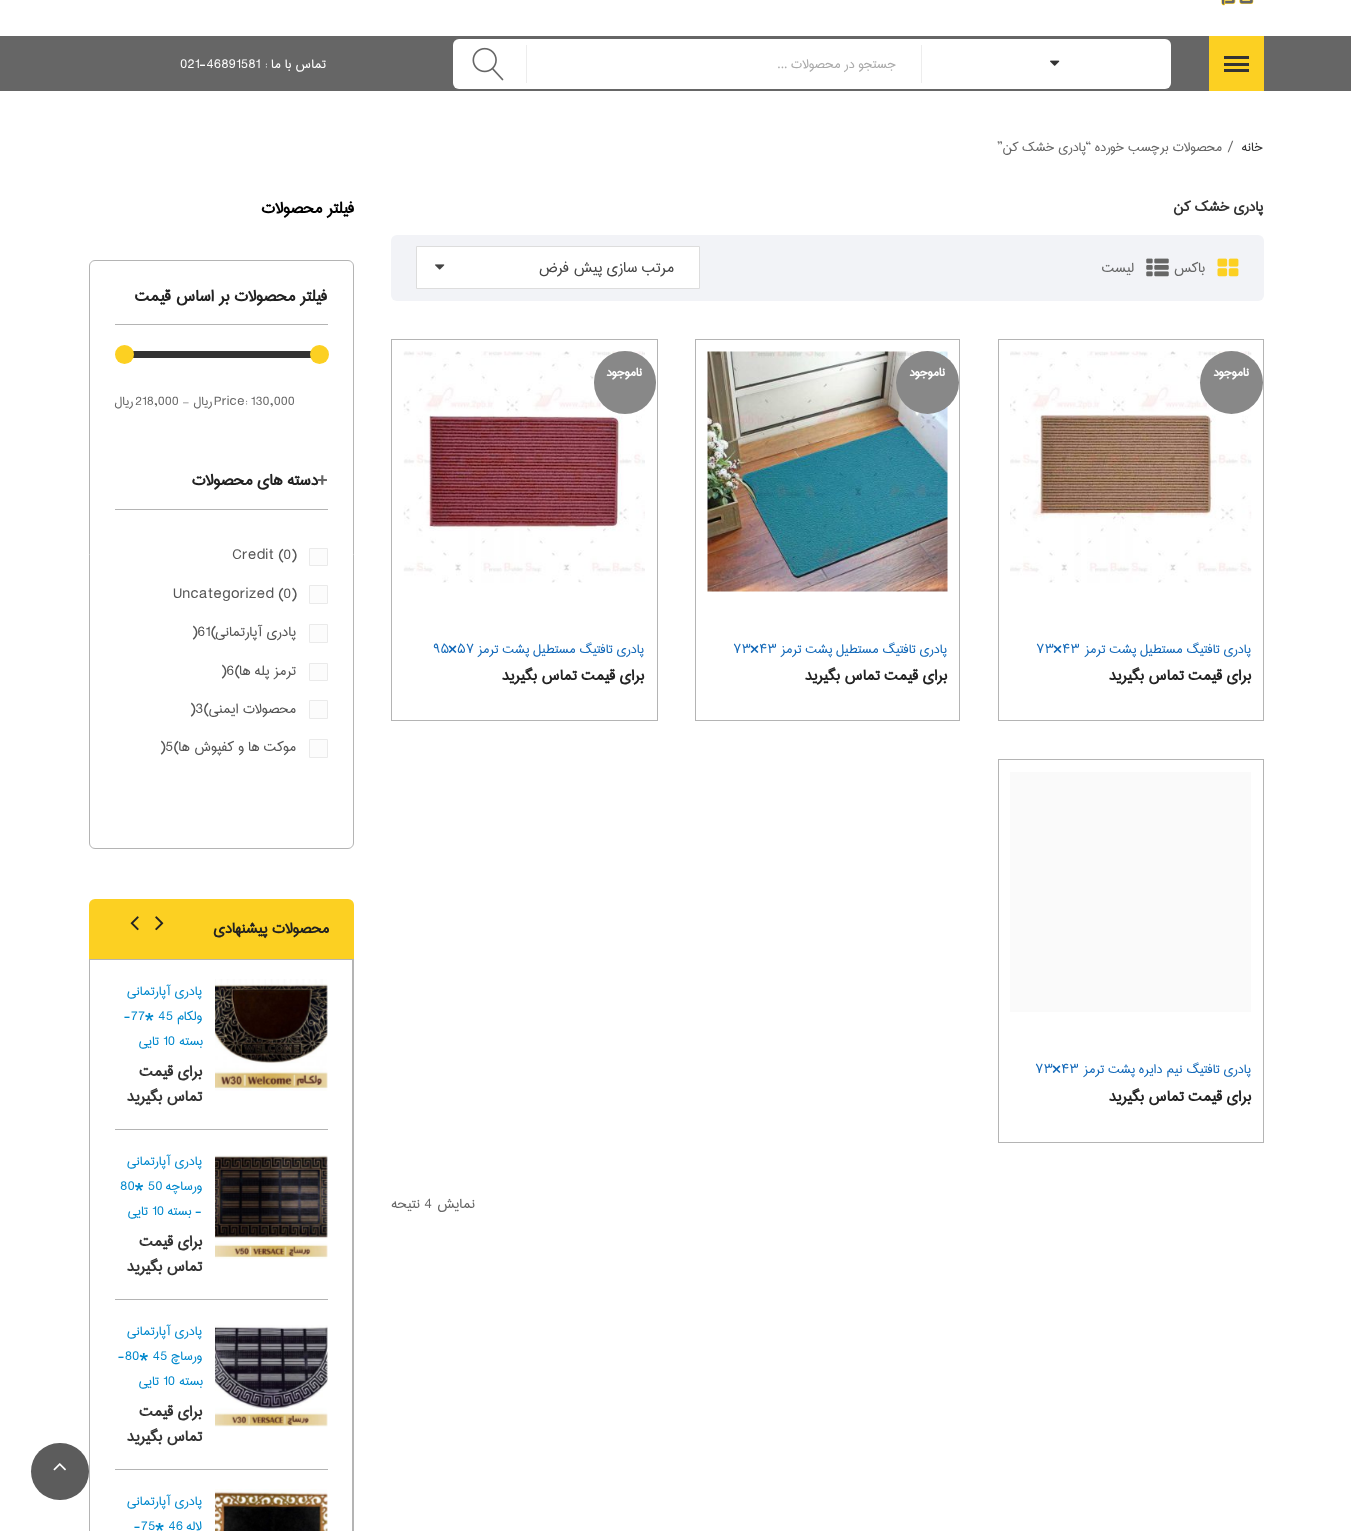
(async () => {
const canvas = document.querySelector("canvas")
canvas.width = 1351
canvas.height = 1531
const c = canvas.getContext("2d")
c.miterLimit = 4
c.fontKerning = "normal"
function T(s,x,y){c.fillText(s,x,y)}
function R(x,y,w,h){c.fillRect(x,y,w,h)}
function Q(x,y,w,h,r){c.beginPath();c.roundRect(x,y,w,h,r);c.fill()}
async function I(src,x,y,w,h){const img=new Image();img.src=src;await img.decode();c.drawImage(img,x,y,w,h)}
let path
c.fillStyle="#fff"
R(0,0,1351,1531)
await I("1.png",1221,0,33,6)
c.fillStyle="#666"
R(0,36,1351,55)
c.fillStyle="#fcd022"
R(1209,36,55,55)
c.fillStyle="#333"
R(1224,56,25,3)
R(1224,63,25,3)
R(1224,69,25,3)
c.fillStyle="#fff"
Q(453,39,718,50,6)
c.fillStyle="#ededed"
R(921,45,1,38)
await I("2.png",1050,60,10,6)
c.direction="rtl"
c.font="16.25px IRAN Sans"
c.fillStyle="#aaa"
T("جستجو در محصولات ...",896,68)
c.fillStyle="#ededed"
R(526,45,1,38)
await I("3.png",472,47,32,34)
c.fillStyle="#fff"
T("تماس با ما :",326,68)
c.direction="ltr"
T("021-46891581",180,68)
c.direction="rtl"
c.fillStyle="#333"
T("خانه",1263,151)
c.direction="ltr"
c.fillStyle="#666"
T("/",1228,151)
c.direction="rtl"
T("محصولات برچسب خورده",1222,151)
T("“پادری خشک کن”",1091,151)
c.font="bold 17.5px IRAN Sans"
c.fillStyle="#333"
T("پادری خشک کن",1263,211)
c.fillStyle="#f2f3f7"
Q(391,235,873,66,6)
await I("4.png",1217,258,22,19)
c.font="17.5px IRAN Sans"
c.fillStyle="#666"
T("باکس",1205,272)
await I("5.png",1146,258,23,19)
T("لیست",1134,272)
c.fillStyle="#fff"
c.beginPath()
c.rect(416.5,246.5,283,42)
c.fill()
c.strokeStyle="#ddd"
c.stroke()
c.font="18.75px IRAN Sans"
c.fillStyle="#444"
T("مرتب سازی پیش فرض",674,272)
await I("6.png",435,264,10,6)
c.strokeStyle="#b4b4b4"
c.strokeRect(998.5,339.5,265,381)
await I("7.png",1010,351,242,232)
c.fillStyle="#888"
c.beginPath()
c.arc(1231.5,382.5,31.5,0,7)
c.fill()
c.font="bold 15px IRAN Sans"
c.fillStyle="#fff"
T("ناموجود",1249,376)
c.font="16.25px IRAN Sans"
c.fillStyle="#1268b8"
T("پادری تافتیگ مستطیل پشت ترمز",1251,653)
c.direction="ltr"
T("۷۳×۴۳",1036,653)
c.direction="rtl"
c.font="bold 18.75px IRAN Sans"
c.fillStyle="#222"
T("برای قیمت تماس بگیرید",1251,680)
c.strokeRect(695.5,339.5,264,381)
await I("8.png",707,351,241,241)
c.fillStyle="#888"
c.beginPath()
c.arc(927.5,382.5,31.5,0,7)
c.fill()
c.font="bold 15px IRAN Sans"
c.fillStyle="#fff"
T("ناموجود",945,376)
c.font="16.25px IRAN Sans"
c.fillStyle="#1268b8"
T("پادری تافتیگ مستطیل پشت ترمز",947,653)
c.direction="ltr"
T("۷۳×۴۳",733,653)
c.direction="rtl"
c.font="bold 18.75px IRAN Sans"
c.fillStyle="#222"
T("برای قیمت تماس بگیرید",947,680)
c.strokeRect(391.5,339.5,266,381)
await I("9.png",403,351,242,232)
c.fillStyle="#888"
Q(594,351,62,63,31)
c.font="bold 15px IRAN Sans"
c.fillStyle="#fff"
T("ناموجود",642,376)
c.font="16.25px IRAN Sans"
c.fillStyle="#1268b8"
T("پادری تافتیگ مستطیل پشت ترمز",644,653)
c.direction="ltr"
T("۹۵×۵۷",433,653)
c.direction="rtl"
c.font="bold 18.75px IRAN Sans"
c.fillStyle="#222"
T("برای قیمت تماس بگیرید",644,680)
c.strokeRect(998.5,759.5,265,383)
c.fillStyle="#fafafa"
R(1010,772,241,240)
c.font="16.25px IRAN Sans"
c.fillStyle="#1268b8"
T("پادری تافتیگ نیم دایره پشت ترمز",1251,1073)
c.direction="ltr"
T("۷۳×۴۳",1035,1073)
c.direction="rtl"
c.font="bold 18.75px IRAN Sans"
c.fillStyle="#222"
T("برای قیمت تماس بگیرید",1251,1101)
c.font="17.5px IRAN Sans"
c.fillStyle="#666"
T("نمایش",475,1208)
c.direction="ltr"
T("4",424,1208)
c.direction="rtl"
T("نتیحه",420,1208)
c.font="bold 20px IRAN Sans"
c.fillStyle="#000"
T("فیلتر محصولات",354,213)
c.beginPath()
c.roundRect(89.5,260.5,264,588,5.5)
c.stroke()
c.fillStyle="#b4b4b4"
R(115,324,213,1)
c.fillStyle="#222"
T("فیلتر محصولات بر اساس قیمت",327,301)
c.fillStyle="#333"
R(133,351,186,7)
c.fillStyle="#fcd022"
c.beginPath()
c.arc(319.5,354.5,9.5,0,7)
c.fill()
c.beginPath()
c.arc(124.5,354.5,9.5,0,7)
c.fill()
c.direction="ltr"
c.font="15.5px IRAN Sans"
c.fillStyle="#666"
T("Price: 130,000",214,405)
c.direction="rtl"
T("ریال",212,405)
c.direction="ltr"
T("—",182,405)
T("218,000",135,405)
c.direction="rtl"
T("ریال",133,405)
c.fillStyle="#b4b4b4"
R(115,509,213,1)
c.direction="ltr"
c.font="bold 20px IRAN Sans"
c.fillStyle="#666"
T("+",318,485)
c.direction="rtl"
c.fillStyle="#222"
T("دسته های محصولات",318,485)
c.fillStyle="#fcfcfc"
c.beginPath()
c.rect(309.5,548.5,18,17)
c.fill()
c.strokeStyle="#eaeaea"
c.stroke()
c.direction="ltr"
c.font="17.5px IRAN Sans"
c.fillStyle="#555"
T("(0)",278,559)
T("Credit",232,559)
c.fillStyle="#fcfcfc"
c.beginPath()
c.rect(309.5,585.5,18,18)
c.fill()
c.stroke()
c.fillStyle="#555"
T("(0)",278,598)
T("Uncategorized",173,598)
c.fillStyle="#fcfcfc"
c.beginPath()
c.rect(309.5,624.5,18,18)
c.fill()
c.stroke()
c.direction="rtl"
c.fillStyle="#555"
T("پادری آپارتمانی",296,636)
c.direction="ltr"
T(")61(",192,636)
c.fillStyle="#fcfcfc"
c.beginPath()
c.rect(309.5,663.5,18,17)
c.fill()
c.stroke()
c.direction="rtl"
c.fillStyle="#555"
T("ترمز پله ها",296,675)
c.direction="ltr"
T(")6(",221,675)
c.fillStyle="#fcfcfc"
c.beginPath()
c.rect(309.5,700.5,18,18)
c.fill()
c.stroke()
c.direction="rtl"
c.fillStyle="#555"
T("محصولات ایمنی",296,713)
c.direction="ltr"
T(")3(",190,713)
c.fillStyle="#fcfcfc"
c.beginPath()
c.rect(309.5,739.5,18,18)
c.fill()
c.stroke()
c.direction="rtl"
c.fillStyle="#555"
T("موکت ها و کفپوش ها",296,751)
c.direction="ltr"
T(")5(",160,751)
c.fillStyle="#fcd022"
c.beginPath()
c.roundRect(89,899,265,61,[6,6,0,0])
c.fill()
c.fillStyle="#b4b4b4"
R(89,959,265,1)
c.direction="rtl"
c.font="bold 18.75px IRAN Sans"
c.fillStyle="#222"
T("محصولات پیشنهادی",329,933)
c.fillStyle="#b4b4b4"
path = new Path2D("M89 960h265v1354c0 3-3 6-6 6h-253c-3 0-6-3-6-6zm1 0h262v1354c0 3-2 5-4 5h-253c-3 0-5-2-5-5z")
c.fill(path,"evenodd")
await I("10.png",155,916,9,15)
await I("11.png",130,916,9,15)
R(115,1129,213,1)
await I("12.png",215,979,113,112)
c.font="16.25px IRAN Sans"
c.fillStyle="#08c"
T("پادری آپارتمانی",202,995)
T("ولکام",202,1020)
c.direction="ltr"
T("-77* 45",124,1020)
c.direction="rtl"
T("بسته",203,1045)
c.direction="ltr"
T("10",163,1045)
c.direction="rtl"
T("تایی",159,1045)
c.font="bold 18.75px IRAN Sans"
c.fillStyle="#333"
T("برای قیمت",202,1076)
T("تماس بگیرید",202,1101)
c.fillStyle="#b4b4b4"
R(115,1299,213,1)
await I("13.png",215,1155,113,104)
c.font="16.25px IRAN Sans"
c.fillStyle="#08c"
T("پادری آپارتمانی",202,1165)
T("ورساچه",202,1190)
c.direction="ltr"
T("80* 50",120,1190)
c.direction="rtl"
T("- بسته",202,1215)
c.direction="ltr"
T("10",152,1215)
c.direction="rtl"
T("تایی",148,1215)
c.font="bold 18.75px IRAN Sans"
c.fillStyle="#333"
T("برای قیمت",202,1246)
T("تماس بگیرید",202,1271)
c.fillStyle="#b4b4b4"
R(115,1469,213,1)
await I("14.png",215,1325,113,102)
c.font="16.25px IRAN Sans"
c.fillStyle="#08c"
T("پادری آپارتمانی",202,1335)
T("ورساچ",202,1360)
c.direction="ltr"
T("-80* 45",118,1360)
c.direction="rtl"
T("بسته",203,1385)
c.direction="ltr"
T("10",163,1385)
c.direction="rtl"
T("تایی",159,1385)
c.font="bold 18.75px IRAN Sans"
c.fillStyle="#333"
T("برای قیمت",202,1416)
T("تماس بگیرید",202,1441)
await I("15.png",215,1489,113,42)
c.font="16.25px IRAN Sans"
c.fillStyle="#08c"
T("پادری آپارتمانی",202,1505)
T("لاله",202,1530)
c.direction="ltr"
T("-75* 46",134,1530)
c.fillStyle="#5c5c5c"
Q(31,1443,58,57,28.5)
await I("16.png",53,1463,13,8)
})()
